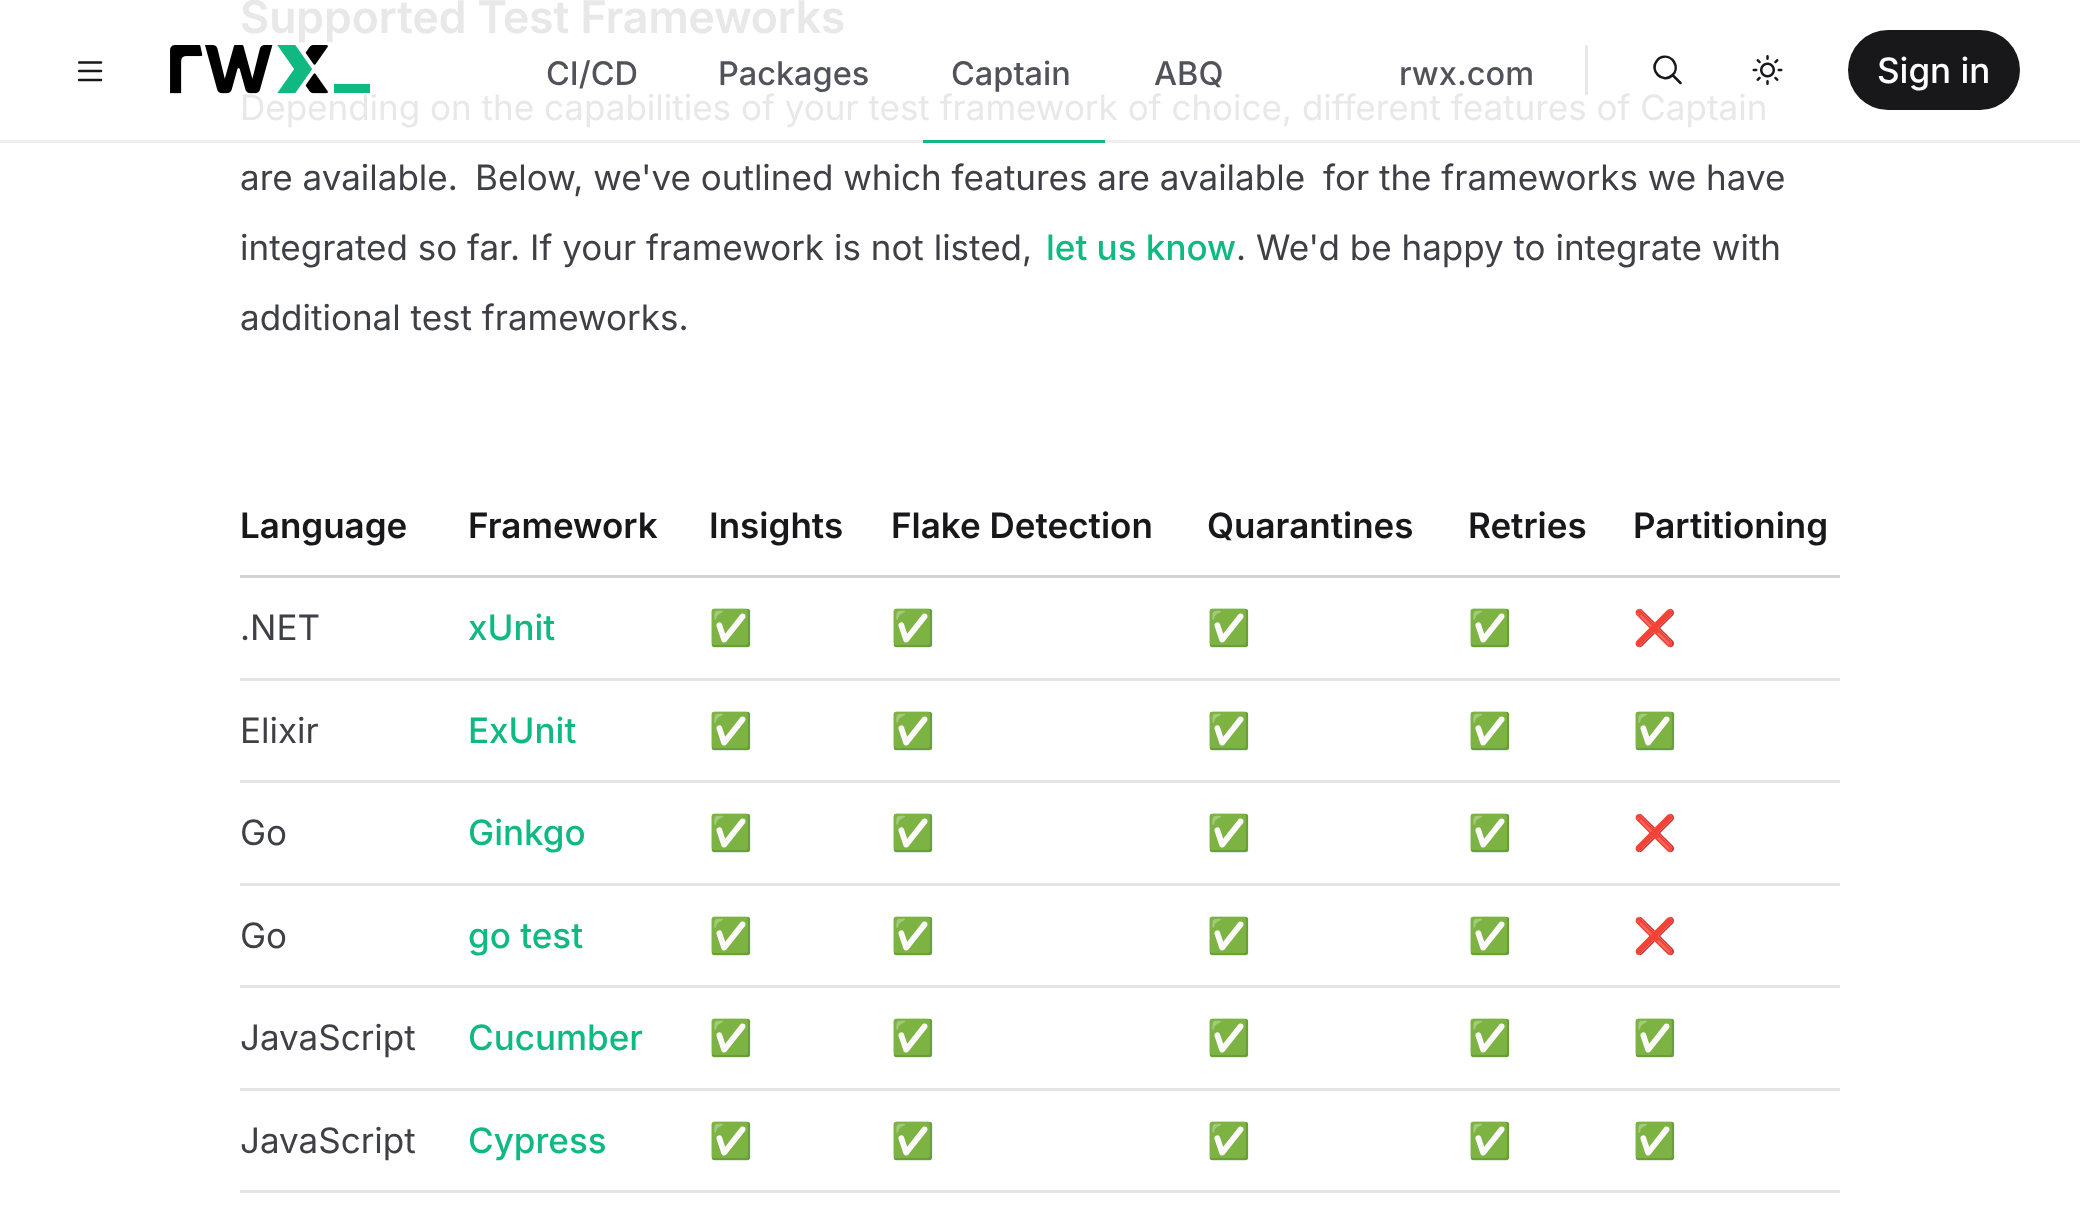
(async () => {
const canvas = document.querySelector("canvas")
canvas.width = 2080
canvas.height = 1225
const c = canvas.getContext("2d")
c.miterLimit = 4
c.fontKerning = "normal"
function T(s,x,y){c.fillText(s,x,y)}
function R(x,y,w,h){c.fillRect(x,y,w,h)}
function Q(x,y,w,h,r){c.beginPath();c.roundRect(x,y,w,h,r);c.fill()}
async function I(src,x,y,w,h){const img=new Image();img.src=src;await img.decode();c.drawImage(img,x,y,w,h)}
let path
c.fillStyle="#fff"
R(0,0,2080,1225)
c.font="600 45px Inter"
c.fillStyle="#e8e8e8"
T("Supported Test Frameworks",240,33)
c.font="35px Inter"
T("Depending on the capabilities of your test framework of choice, different features of Captain",240,120)
c.fillStyle="#3f3f46"
T("are available.",240,190)
T("Below, we've outlined which features are available",475,190)
T("for the frameworks we have",1323,190)
T("integrated so far. If your framework is not listed,",240,260)
c.font="500 35px Inter"
c.fillStyle="#10b981"
T("let us know",1046,260)
c.font="35px Inter"
c.fillStyle="#3f3f46"
T(". We'd be happy to integrate with",1236,260)
T("additional test frameworks.",240,330)
c.fillStyle="#d4d4d8"
R(240,575,1600,3)
c.font="600 35px 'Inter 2'"
c.fillStyle="#18181b"
T("Language",240,538)
T("Framework",468,538)
T("Insights",709,538)
T("Flake Detection",891,538)
T("Quarantines",1207,538)
T("Retries",1468,538)
T("Partitioning",1633,538)
c.fillStyle="#e4e4e7"
R(240,678,1600,3)
c.font="35px Inter"
c.fillStyle="#3f3f46"
T(".NET",240,640)
c.font="500 35px Inter"
c.fillStyle="#10b981"
T("xUnit",468,640)
c.font="35px Noto Color Emoji"
c.fillStyle="#3f3f46"
T("✅",709,640)
T("✅",891,640)
T("✅",1207,640)
T("✅",1468,640)
T("❌",1633,640)
c.fillStyle="#e4e4e7"
R(240,780,1600,3)
c.font="35px Inter"
c.fillStyle="#3f3f46"
T("Elixir",240,743)
c.font="500 35px Inter"
c.fillStyle="#10b981"
T("ExUnit",468,743)
c.font="35px Noto Color Emoji"
c.fillStyle="#3f3f46"
T("✅",709,743)
T("✅",891,743)
T("✅",1207,743)
T("✅",1468,743)
T("✅",1633,743)
c.fillStyle="#e4e4e7"
R(240,883,1600,3)
c.font="35px Inter"
c.fillStyle="#3f3f46"
T("Go",240,845)
c.font="500 35px Inter"
c.fillStyle="#10b981"
T("Ginkgo",468,845)
c.font="35px Noto Color Emoji"
c.fillStyle="#3f3f46"
T("✅",709,845)
T("✅",891,845)
T("✅",1207,845)
T("✅",1468,845)
T("❌",1633,845)
c.fillStyle="#e4e4e7"
R(240,985,1600,3)
c.font="35px Inter"
c.fillStyle="#3f3f46"
T("Go",240,948)
c.font="500 35px Inter"
c.fillStyle="#10b981"
T("go test",468,948)
c.font="35px Noto Color Emoji"
c.fillStyle="#3f3f46"
T("✅",709,948)
T("✅",891,948)
T("✅",1207,948)
T("✅",1468,948)
T("❌",1633,948)
c.fillStyle="#e4e4e7"
R(240,1088,1600,3)
c.font="35px Inter"
c.fillStyle="#3f3f46"
T("JavaScript",240,1050)
c.font="500 35px Inter"
c.fillStyle="#10b981"
T("Cucumber",468,1050)
c.font="35px Noto Color Emoji"
c.fillStyle="#3f3f46"
T("✅",709,1050)
T("✅",891,1050)
T("✅",1207,1050)
T("✅",1468,1050)
T("✅",1633,1050)
c.fillStyle="#e4e4e7"
R(240,1190,1600,3)
c.font="35px Inter"
c.fillStyle="#3f3f46"
T("JavaScript",240,1153)
c.font="500 35px Inter"
c.fillStyle="#10b981"
T("Cypress",468,1153)
c.font="35px Noto Color Emoji"
c.fillStyle="#3f3f46"
T("✅",709,1153)
T("✅",891,1153)
T("✅",1207,1153)
T("✅",1468,1153)
T("✅",1633,1153)
c.save()
c.beginPath()
c.rect(78,60,25,23)
c.clip()
path = new Path2D("M79 62.5h22m-22 17.5h22m-22-9h22")
c.strokeStyle="#18181b"
c.lineWidth=2.5
c.lineCap="round"
c.stroke(path)
c.restore()
await I("1.png",170,45,200,49)
c.font="500 32.5px Inter"
c.fillStyle="#52525b"
T("CI/CD",546,85)
T("Packages",718,85)
T("Captain",951,85)
c.fillStyle="#eee"
R(0,140,2080,3)
c.fillStyle="#10b981"
R(923,140,182,3)
c.fillStyle="#52525b"
T("ABQ",1154,85)
T("rwx.com",1399,85)
c.fillStyle="#e8e8e8"
R(1585,45,3,50)
path = new Path2D("M1672.5 75c8-7.5 0-20.5-10.5-18c-1.5 .5-3.5 1.5-4.5 3c-9.5 10.5 5.5 24.5 15 15zm0 0l8 8")
c.strokeStyle="#18181b"
c.lineWidth=2.5
c.lineCap="round"
c.lineJoin="round"
c.stroke(path)
await I("2.png",1752,55,31,30)
c.fillStyle="#18181b"
Q(1848,30,172,80,40)
c.font="500 35px Inter"
c.fillStyle="#fff"
T("Sign in",1877,83)
})()
